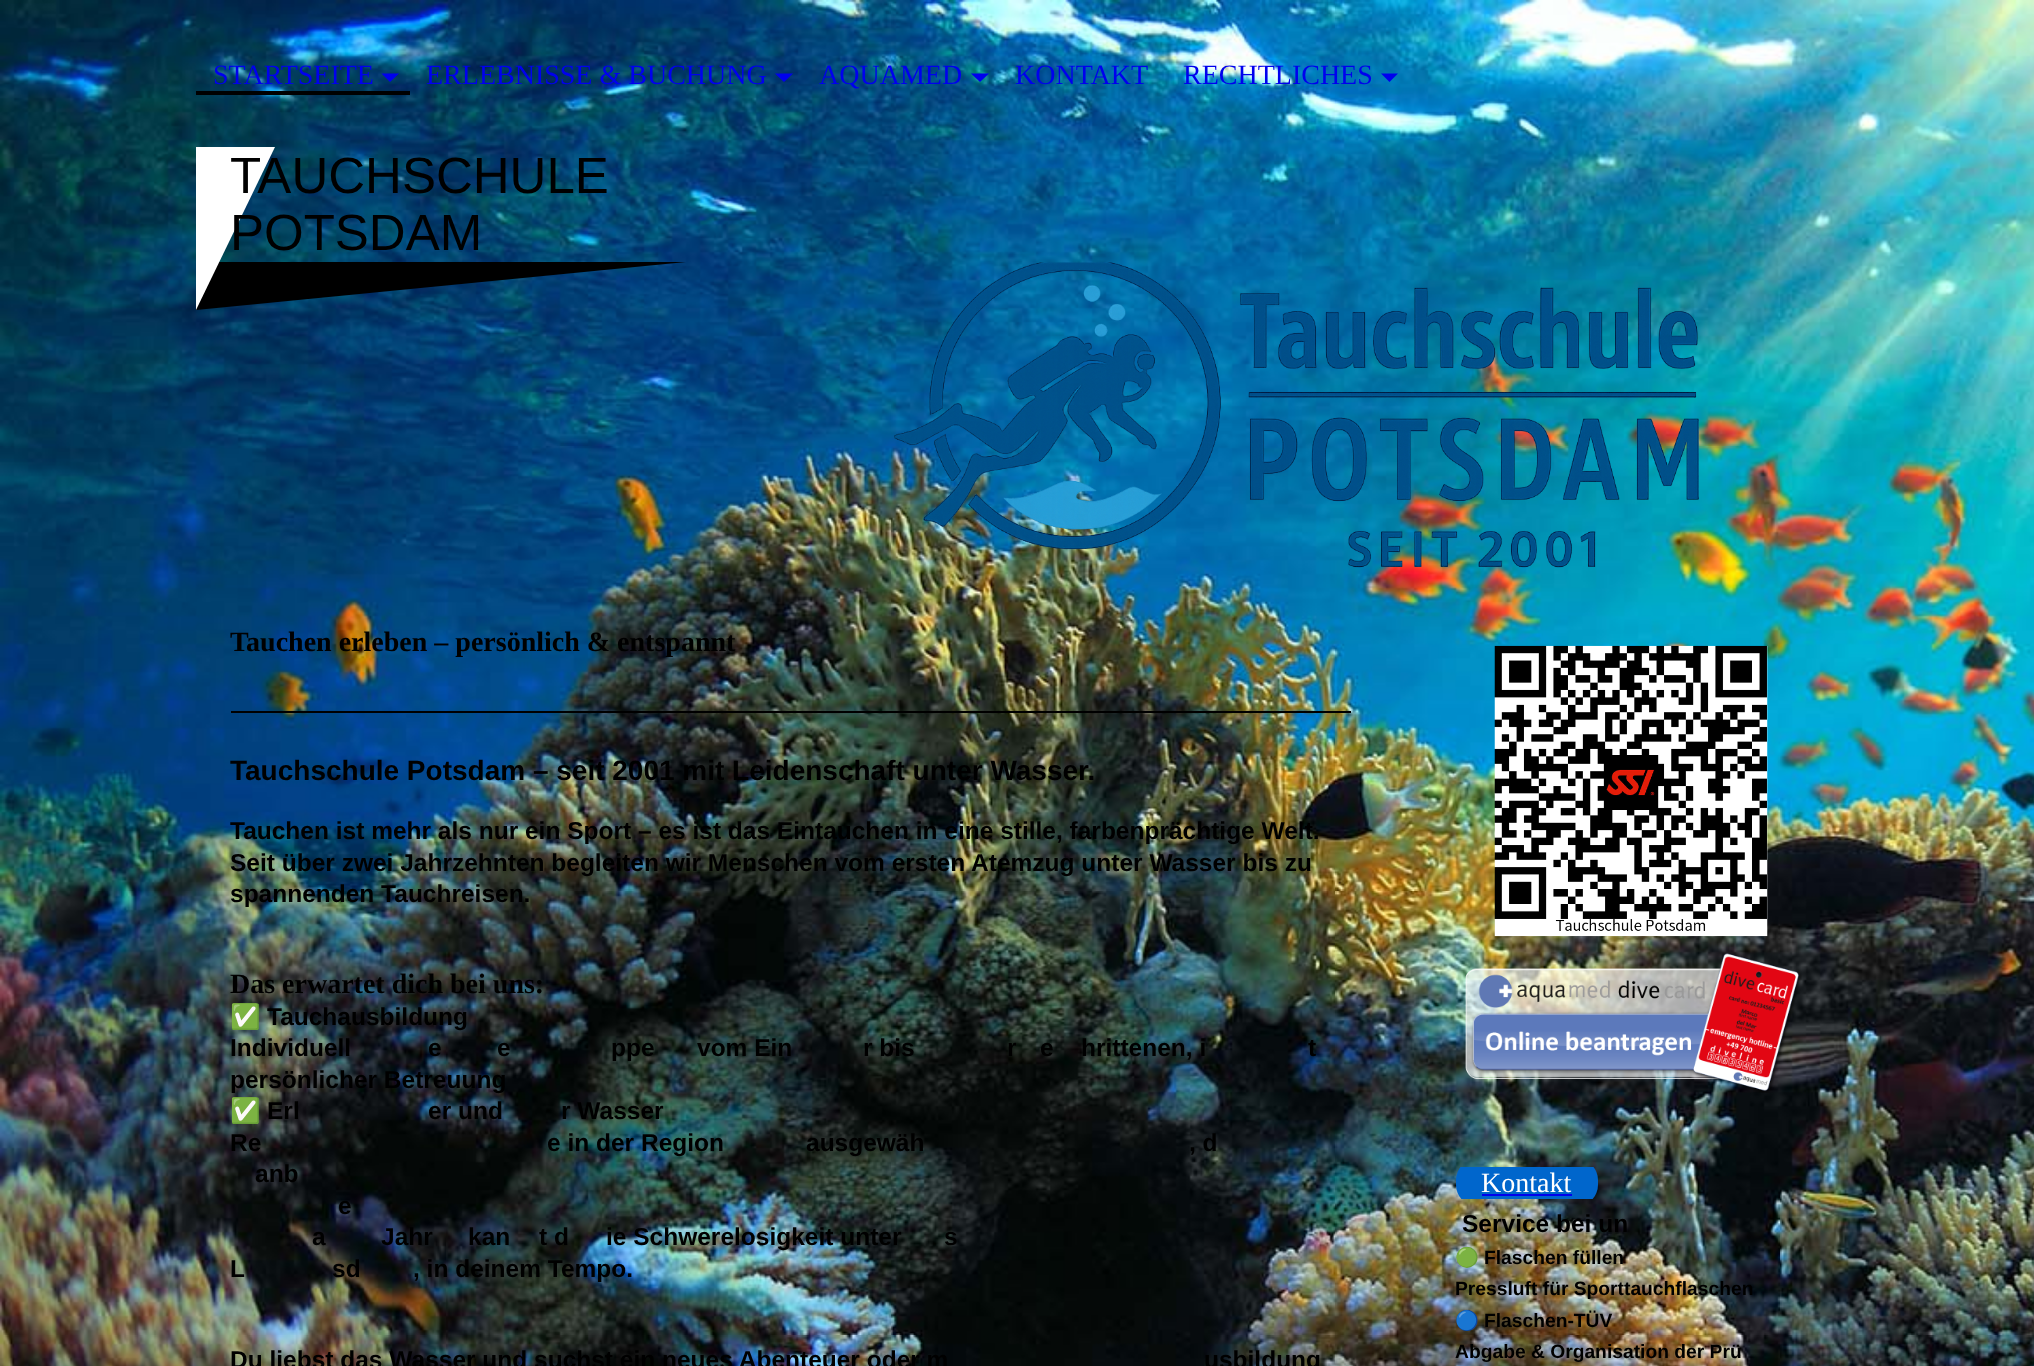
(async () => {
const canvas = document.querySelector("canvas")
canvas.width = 2034
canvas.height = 1366
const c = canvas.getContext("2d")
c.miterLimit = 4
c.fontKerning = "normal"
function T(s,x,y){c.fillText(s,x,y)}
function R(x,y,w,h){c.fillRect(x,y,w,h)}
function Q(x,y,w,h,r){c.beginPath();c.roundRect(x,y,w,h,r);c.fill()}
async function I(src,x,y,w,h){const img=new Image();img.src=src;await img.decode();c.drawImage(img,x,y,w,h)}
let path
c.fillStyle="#fff"
R(0,0,2034,1366)
await I("1.png",0,0,2034,1366)
c.font="28px Liberation Serif"
c.fillStyle="#00e"
T("STARTSEITE",213,84)
path = new Path2D("M381.5 73.5h17.5l-9 8.5z")
c.fill(path)
T("ERLEBNISSE & BUCHUNG",426,84)
path = new Path2D("M775 73.5h18l-9 8.5z")
c.fill(path)
T("AQUAMED",819,84)
path = new Path2D("M971 73.5h18l-9 8.5z")
c.fill(path)
T("KONTAKT",1015,84)
T("RECHTLICHES",1183,84)
path = new Path2D("M1381 73.5h17l-8.5 8.5z")
c.fill(path)
c.fillStyle="#000"
R(196,91,214,4)
path = new Path2D("M196 310v-48h490z")
c.fill(path)
c.fillStyle="#fff"
path = new Path2D("M196 310v-163h79z")
c.fill(path)
c.font="51px Liberation Sans"
c.fillStyle="#000"
T("TAUCHSCHULE",230,193)
T("POTSDAM",230,250)
await I("2.png",894,262,805,306)
c.font="bold 28px Liberation Serif"
T("Tauchen erleben – persönlich & entspannt",230,651)
R(231,711,1120,2)
c.font="bold 28px Liberation Sans"
T("Tauchschule Potsdam – seit 2001 mit Leidenschaft unter Wasser.",230,780)
c.font="bold 24.5px Liberation Sans"
T("Tauchen ist mehr als nur ein Sport – es ist das Eintauchen in eine stille, farbenprächtige Welt.",230,839)
T("Seit über zwei Jahrzehnten begleiten wir Menschen vom ersten Atemzug unter Wasser bis zu",230,871)
T("spannenden Tauchreisen.",230,902)
c.font="bold 28px Liberation Serif"
T("Das erwartet dich bei uns:",230,993)
c.font="bold 24.5px Noto Color Emoji"
T("✅",230,1025)
c.font="bold 24.5px Liberation Sans"
T("Tauchausbildung",267,1025)
T("Individuell",230,1056)
T("e",428,1056)
T("e",497,1056)
T("ppe",611,1056)
T("vom Ein",697,1056)
T("r bis",863,1056)
T("r",1007,1056)
T("e",1040,1056)
T("hrittenen, i",1081,1056)
T("t",1308,1056)
T("persönlicher Betreuung",230,1088)
c.font="bold 24.5px Noto Color Emoji"
T("✅",230,1119)
c.font="bold 24.5px Liberation Sans"
T("Erl",267,1119)
T("er und",428,1119)
T("r Wasser",561,1119)
T("Re",230,1151)
T("e in der Region",547,1151)
T("ausgewäh",806,1151)
T(", d",1189,1151)
T("anb",255,1182)
T("e",338,1214)
T("a",312,1245)
T("Jahr",381,1245)
T("kan",468,1245)
T("t d",539,1245)
T("ie Schwerelosigkeit unter",606,1245)
T("s",944,1245)
T("L",230,1277)
T("sd",332,1277)
T(", in deinem Tempo.",413,1277)
T("Du liebst das Wasser und suchst ein neues Abenteuer oder m",230,1368)
T("usbildung",1204,1368)
await I("3.png",1494,645,274,292)
await I("4.png",1465,953,337,140)
c.save()
c.beginPath()
c.rect(1456,1167,350,32)
c.clip()
c.fillStyle="#06c"
Q(1456,1159,142,47,21)
c.restore()
c.font="28px Liberation Serif"
c.fillStyle="#fff"
T("Kontakt",1481,1192)
c.fillStyle="#00e"
R(1482,1194,90,2)
c.font="bold 24.5px Liberation Sans"
c.fillStyle="#000"
T("Service bei un",1462,1232)
c.font="bold 19.25px Noto Color Emoji"
T("🟢",1455,1264)
c.font="bold 19.25px Liberation Sans"
T("Flaschen füllen",1484,1264)
T("Pressluft für Sporttauchflaschen",1455,1295)
c.font="bold 19.25px Noto Color Emoji"
T("🔵",1455,1327)
c.font="bold 19.25px Liberation Sans"
T("Flaschen-TÜV",1484,1327)
T("Abgabe & Organisation der Prü",1455,1358)
})()
